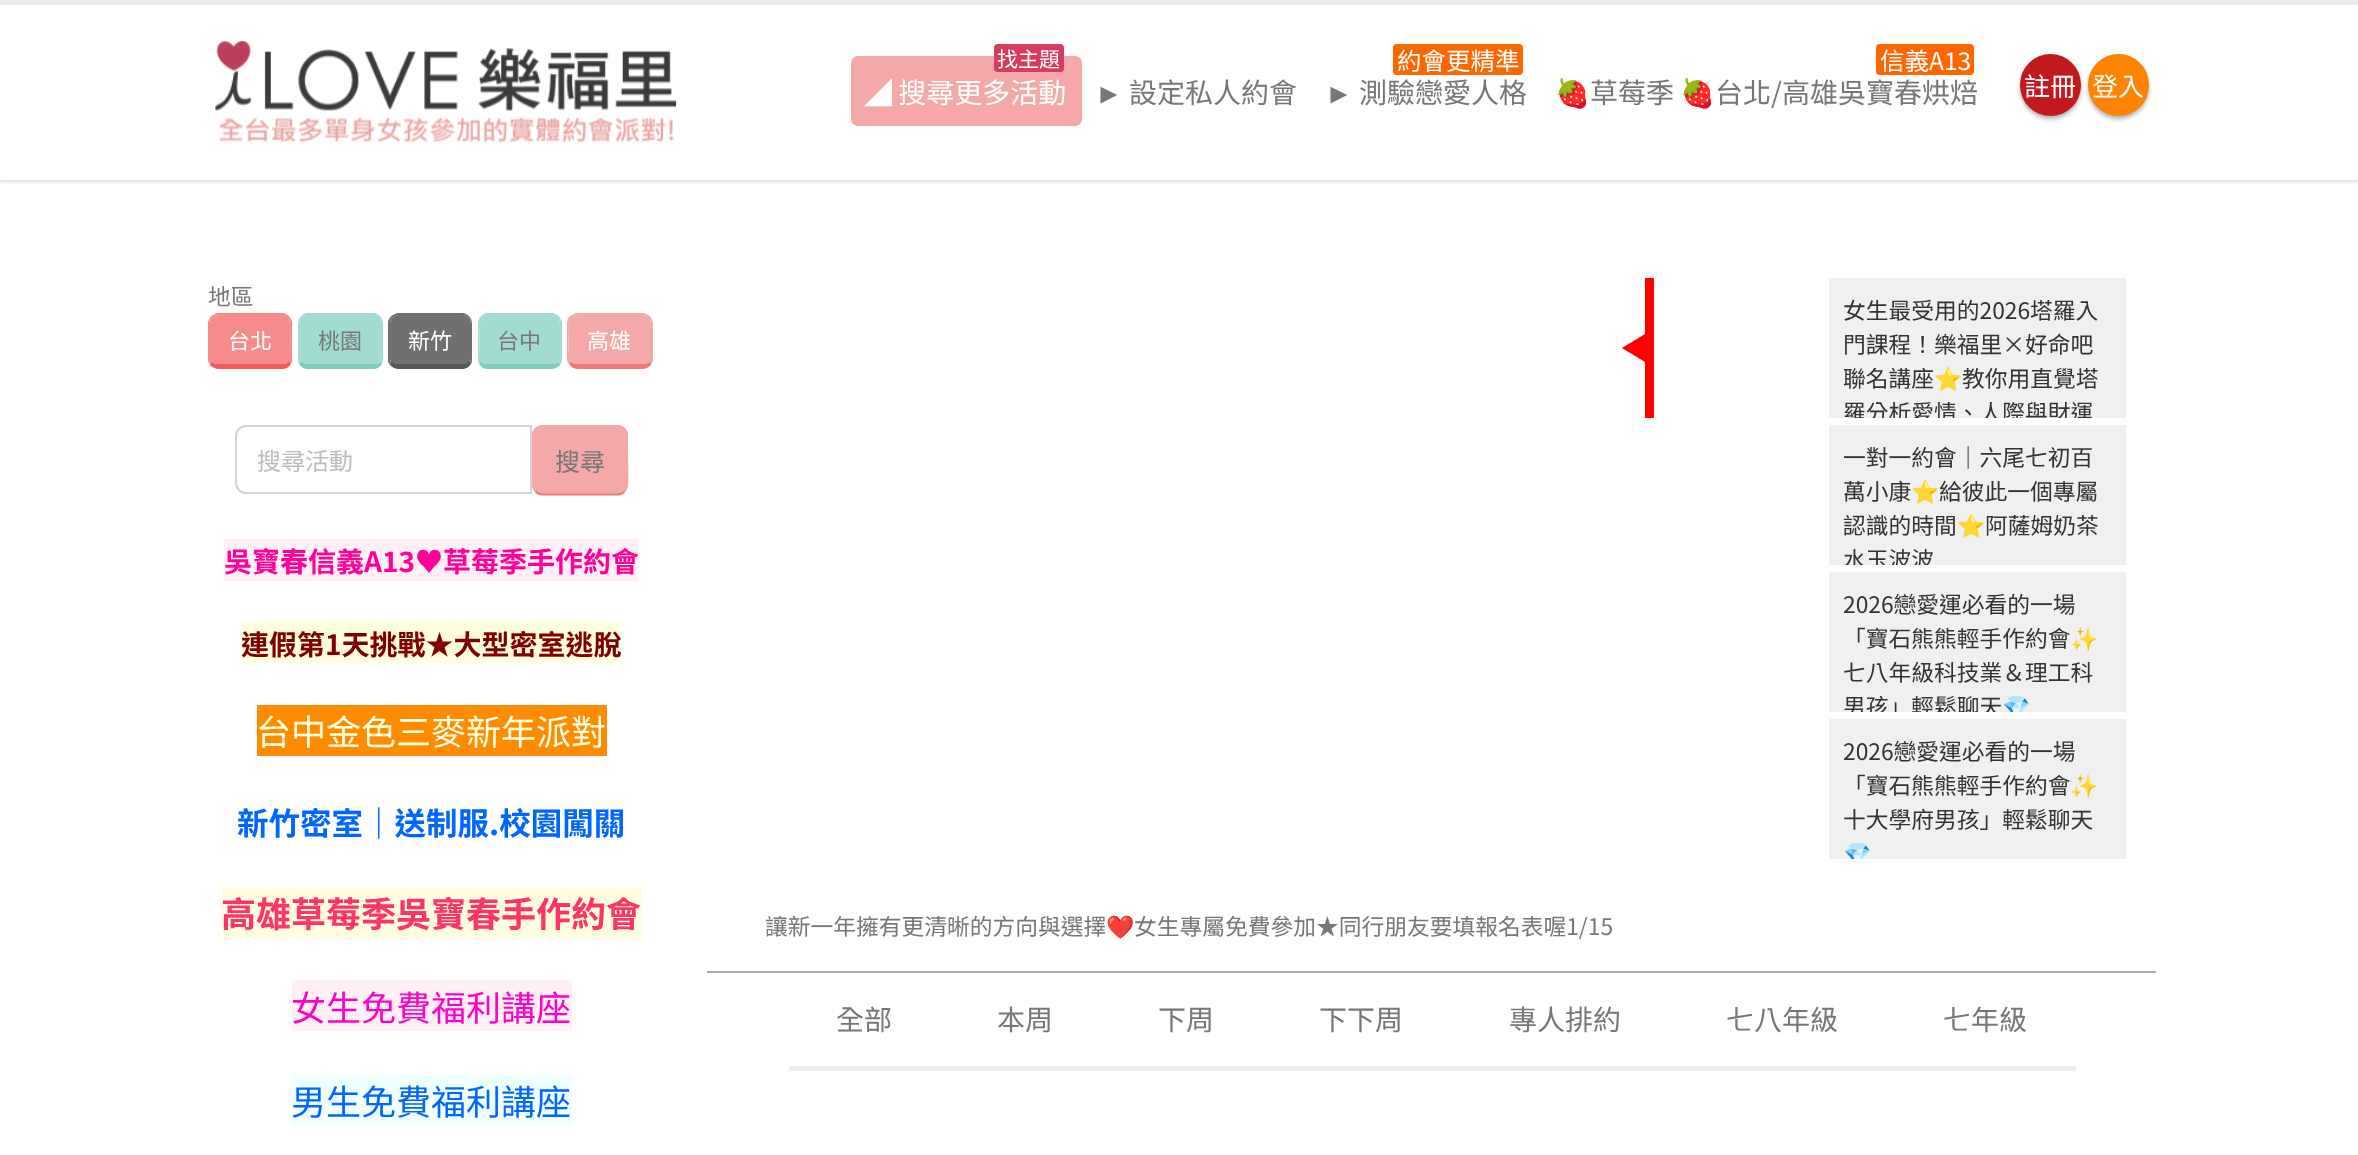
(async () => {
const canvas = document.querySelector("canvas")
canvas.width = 2358
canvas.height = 1155
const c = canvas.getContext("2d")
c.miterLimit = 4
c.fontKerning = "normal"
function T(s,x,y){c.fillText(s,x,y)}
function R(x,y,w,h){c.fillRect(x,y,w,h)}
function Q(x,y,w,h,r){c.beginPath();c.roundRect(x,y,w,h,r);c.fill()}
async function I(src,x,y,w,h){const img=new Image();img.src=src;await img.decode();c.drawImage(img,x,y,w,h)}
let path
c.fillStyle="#fff"
R(0,0,2358,1155)
c.save()
c.beginPath()
c.rect(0,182,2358,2)
c.clip()
c.fillStyle="#0000001a"
c.filter="blur(2.5px)"
c.beginPath()
c.rect(0,0,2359,182)
c.fill()
c.filter="none"
c.restore()
c.fillStyle="#ededed"
R(0,0,2358,5)
c.fillStyle="#e9e9e9"
R(0,180,2358,2)
await I("1.png",215,40,462,103)
c.fillStyle="#f4a8a8"
Q(851,56,231,70,7)
c.fillStyle="#d63c5d"
Q(994,44,70,28,4)
c.font="21px Noto Sans TC"
c.fillStyle="#fff"
T("找主題",997,67)
c.font="28px Noto Sans TC"
T("◢ 搜尋更多活動",864,103)
c.font="28px Liberation Sans"
c.fillStyle="#777"
T("►",1095,103)
c.font="28px Noto Sans TC"
T("設定私人約會",1129,103)
c.fillStyle="#f60"
Q(1393,44,130,31,4)
c.font="24.5px Noto Sans TC"
c.fillStyle="#fff"
T("約會更精準",1397,70)
c.font="28px Liberation Sans"
c.fillStyle="#777"
T("►",1325,103)
c.font="28px Noto Sans TC"
T("測驗戀愛人格",1359,103)
c.fillStyle="#f60"
Q(1876,44,98,31,4)
c.font="24.5px Noto Sans TC"
c.fillStyle="#fff"
T("信義A13",1880,70)
c.font="28px 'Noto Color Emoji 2'"
c.fillStyle="#777"
T("🍓",1555,103)
c.font="28px Noto Sans TC"
T("草莓季",1590,103)
c.font="28px 'Noto Color Emoji 2'"
T("🍓",1680,103)
c.font="28px Noto Sans TC"
T("台北/高雄吳寶春烘焙",1715,103)
c.fillStyle="#0000004d"
c.filter="blur(2px)"
c.beginPath()
c.roundRect(2020,58,61,61,30.5)
c.fill()
c.filter="none"
c.fillStyle="#c3191e"
Q(2020,54,61,62,30.5)
c.font="26px Noto Sans TC"
c.fillStyle="#fff"
T("註冊",2024,96)
c.fillStyle="#0000004d"
c.filter="blur(2px)"
c.beginPath()
c.roundRect(2088,58,61,61,30.5)
c.fill()
c.filter="none"
c.fillStyle="#ff8201"
Q(2088,54,61,62,30.5)
c.fillStyle="#fff"
T("登入",2092,96)
c.font="22.75px Noto Sans TC"
c.fillStyle="#777"
T("地區",208,305)
c.fillStyle="#f78b8b"
path = new Path2D("M219 315h63c5 0 8 4 8 9v35c0 3-3 5-8 5h-63c-5 0-9-2-9-5v-35c0-5 4-9 9-9z")
c.fill(path)
path = new Path2D("M219 315c-3 0-5 1-6 3l-2-2c2-1 4-2 6-3h67c2 1 4 2 5 3l-1 2c-2-2-4-3-6-3z")
c.fill(path)
path = new Path2D("M289 316c2 2 3 5 3 8v35c0 2 0 4-1 5l-2-3c2-2 1-35 1-39l-2-4z")
c.fill(path)
c.fillStyle="#f45b5b"
path = new Path2D("M291 364c-2 3-5 5-9 5h-63c-4 0-7-2-9-4l1-4c1 2 4 3 8 3h63c4 0 6-1 7-3z")
c.fill(path)
c.fillStyle="#f78b8b"
path = new Path2D("M208 322c1-2 2-4 3-6l2 2c-2 1-2 2-3 4v37l1 2l-1 4l-2-4z")
c.fill(path)
c.font="22px Noto Sans TC"
c.fillStyle="#fff"
T("台北",228,349)
c.fillStyle="#a2dbd2"
path = new Path2D("M308 315h65c5 0 9 4 9 9v35c0 3-4 5-9 5h-65c-5 0-9-2-9-5v-35c0-5 4-9 9-9z")
c.fill(path)
path = new Path2D("M308 315c-2 0-5 1-6 3l-1-2c1-1 3-2 5-3h69c2 1 4 2 5 3l-1 1c-1-1-4-2-6-2z")
c.fill(path)
path = new Path2D("M380 316c2 2 3 5 3 8v35c0 2 0 4-1 5l-1-2c1-1 1-2 1-3v-35c0-3-1-5-3-7z")
c.fill(path)
c.fillStyle="#7dcdc0"
path = new Path2D("M382 364c-2 3-5 5-9 5h-65c-4 0-7-2-9-5l1-3c2 2 5 3 8 3h65c3 0 6-1 8-2z")
c.fill(path)
c.fillStyle="#a2dbd2"
path = new Path2D("M299 364c-1-1-1-3-1-5v-35c0-3 1-6 3-8l1 2c-2 1-3 3-3 6v35c0 1 0 2 1 2z")
c.fill(path)
c.fillStyle="#777"
T("桃園",318,349)
c.fillStyle="#707070"
path = new Path2D("M399 315h63c5 0 9 4 9 9v35c0 3-4 5-9 5h-63c-5 0-9-2-9-5v-35c0-5 4-9 9-9z")
c.fill(path)
path = new Path2D("M399 315c-2 0-5 1-6 3l-2-2c2-1 4-2 6-3h67c2 1 4 2 5 3l-1 2c-1-2-4-3-6-3z")
c.fill(path)
path = new Path2D("M469 316c2 2 3 5 3 8v35c0 2 0 4-1 5l-1-3c1 0 1-1 1-2v-35c0-3-1-5-3-6z")
c.fill(path)
c.fillStyle="#575757"
path = new Path2D("M471 364c-2 3-5 5-9 5h-63c-4 0-7-2-9-4l1-4c2 2 5 3 8 3h63c3 0 6-1 8-3z")
c.fill(path)
c.fillStyle="#707070"
path = new Path2D("M388 321l3-5l2 2c-2 1-3 3-3 6v35c0 1 0 2 1 2l-1 4l-2-3z")
c.fill(path)
c.fillStyle="#fff"
T("新竹",408,349)
c.fillStyle="#a2dbd2"
path = new Path2D("M488 315h63c5 0 9 4 9 9v35c0 3-4 5-9 5h-63c-5 0-8-2-8-5v-35c0-5 3-9 8-9z")
c.fill(path)
path = new Path2D("M488 315c-2 0-4 1-6 3l-1-2c1-1 3-2 5-3h67c2 1 4 2 6 3l-2 2c-1-2-3-3-6-3z")
c.fill(path)
path = new Path2D("M562 361l-2 4l-1-4l1-2v-37c-1-2-1-3-3-4l2-2c1 2 2 4 3 6z")
c.fill(path)
c.fillStyle="#7dcdc0"
path = new Path2D("M560 365c-2 2-5 4-9 4h-63c-4 0-7-2-9-5l2-3c1 2 3 3 7 3h63c4 0 7-1 8-3z")
c.fill(path)
c.fillStyle="#a2dbd2"
path = new Path2D("M479 364c-1-1-1-3-1-5v-35c0-3 1-6 3-8l1 2l-2 4c0 4-1 37 1 39z")
c.fill(path)
c.fillStyle="#777"
T("台中",497,349)
c.fillStyle="#f4a8a8"
path = new Path2D("M578 315h64c5 0 9 4 9 9v35c0 3-4 5-9 5h-64c-5 0-9-2-9-5v-35c0-5 4-9 9-9z")
c.fill(path)
path = new Path2D("M578 315c-3 0-5 1-6 3l-2-2c2-1 4-2 6-3h68c2 1 4 2 6 3l-2 2c-1-2-4-3-6-3z")
c.fill(path)
path = new Path2D("M653 361l-2 4l-1-4l1-2v-37c-1-2-1-3-3-4l2-2c1 2 2 4 3 6z")
c.fill(path)
c.fillStyle="#ee7b7b"
path = new Path2D("M651 365c-2 2-5 4-9 4h-64c-4 0-7-2-9-5l1-3c1 2 4 3 8 3h64c4 0 7-1 8-3z")
c.fill(path)
c.fillStyle="#f4a8a8"
path = new Path2D("M567 324v35c0 2 1 4 2 5l1-3c-2-2-1-35-1-39c1-1 1-3 3-4l-2-2c-2 2-3 5-3 8z")
c.fill(path)
c.fillStyle="#fff"
T("高雄",587,349)
c.fillStyle="#f4a8a8"
Q(532,425,96,70,11)
path = new Path2D("M624.5 491.5c-1.5 2-4 3-6.5 3h-75.5c-2.5 0-5-1-7-3")
c.strokeStyle="#ee7b7b"
c.lineWidth=1.8
c.stroke(path)
path = new Path2D("M535.5 491.5c-4-4-2.5-10-2.5-15v-42.5c2-10.5 15-8 22-8h50c7.5 0 20-2.5 22 8l.5 42.5c0 5 1 11-3 15")
c.strokeStyle="#f4a8a8"
c.stroke(path)
c.beginPath()
c.roundRect(236,426,295,67,[10,0,0,10])
c.strokeStyle="#ced4da"
c.lineWidth=2
c.stroke()
c.font="24px Noto Sans TC"
c.fillStyle="#bdbdbd"
T("搜尋活動",257,470)
c.font="25px Noto Sans TC"
c.fillStyle="#777"
T("搜尋",555,471)
c.fillStyle="#fff0f5"
R(224,539,415,42)
c.font="bold 28px Noto Sans TC"
c.fillStyle="#f09"
T("吳寶春信義A13♥草莓季手作約會",224,572)
c.fillStyle="#ffffe0"
R(242,621,379,42)
c.fillStyle="#800000"
T("連假第1天挑戰★大型密室逃脫",241,655)
c.fillStyle="#ff8c00"
R(257,705,350,51)
c.font="35px Noto Sans TC"
c.fillStyle="#ffffe0"
T("台中金色三麥新年派對",256,745)
c.font="bold 31.5px Noto Sans TC"
c.fillStyle="#06f"
T("新竹密室｜送制服.校園闖關",237,835)
c.fillStyle="#ffffe0"
R(222,887,420,51)
c.font="bold 35px Noto Sans TC"
c.fillStyle="#f36"
T("高雄草莓季吳寶春手作約會",221,927)
c.fillStyle="#fff0f5"
R(292,980,280,51)
c.font="35px Noto Sans TC"
c.fillStyle="#f0c"
T("女生免費福利講座",291,1021)
c.fillStyle="#f0ffff"
R(292,1075,280,50)
c.fillStyle="#06f"
T("男生免費福利講座",291,1115)
c.fillStyle="#aaa"
R(707,971,1449,2)
c.fillStyle="#f00"
path = new Path2D("M1645 334v28l-23-14z")
c.fill(path)
R(1645,278,9,140)
c.fillStyle="#f0f0f0"
R(1829,278,297,140)
c.font="22.75px Noto Sans TC"
c.fillStyle="#333"
T("女生最受用的2026塔羅入",1843,319)
T("門課程！樂福里×好命吧",1843,353)
T("聯名講座",1843,387)
c.font="22.75px Noto Color Emoji"
T("⭐",1934,387)
c.font="22.75px Noto Sans TC"
T("教你用直覺塔",1962,387)
c.save()
c.beginPath()
c.rect(1622,278,508,140)
c.clip()
T("羅分析愛情、人際與財運",1843,421)
c.restore()
c.fillStyle="#f0f0f0"
R(1829,425,297,140)
c.fillStyle="#333"
T("一對一約會｜六尾七初百",1843,466)
T("萬小康",1843,500)
c.font="22.75px Noto Color Emoji"
T("⭐️",1911,500)
c.font="22.75px Noto Sans TC"
T("給彼此一個專屬",1939,500)
T("認識的時間",1843,534)
c.font="22.75px Noto Color Emoji"
T("⭐️",1957,534)
c.font="22.75px Noto Sans TC"
T("阿薩姆奶茶",1985,534)
c.save()
c.beginPath()
c.rect(1622,425,508,140)
c.clip()
T("水玉波波",1843,568)
c.restore()
c.fillStyle="#f0f0f0"
R(1829,572,297,140)
c.fillStyle="#333"
T("2026戀愛運必看的一場",1843,613)
T("「寶石熊熊輕手作約會",1843,647)
c.font="22.75px Noto Color Emoji"
T("✨",2070,647)
c.font="22.75px Noto Sans TC"
T("七八年級科技業＆理工科",1843,681)
c.save()
c.beginPath()
c.rect(1622,572,508,140)
c.clip()
T("男孩」輕鬆聊天",1843,715)
c.font="22.75px Noto Color Emoji"
T("💎",2002,715)
c.restore()
c.fillStyle="#f0f0f0"
R(1829,719,297,140)
c.fillStyle="#333"
T("2026戀愛運必看的一場",1843,760)
T("「寶石熊熊輕手作約會",1843,794)
c.font="22.75px Noto Color Emoji"
T("✨",2070,794)
c.font="22.75px Noto Sans TC"
T("十大學府男孩」輕鬆聊天",1843,828)
c.save()
c.beginPath()
c.rect(1622,719,508,140)
c.clip()
c.font="22.75px Noto Color Emoji"
T("💎",1843,862)
c.restore()
c.fillStyle="#777"
T("讓新一年擁有更清晰的方向與選擇",765,935)
c.font="22.75px Noto Color Emoji"
T("❤️",1106,935)
c.font="22.75px Noto Sans TC"
T("女生專屬免費參加★同行朋友要填報名表喔1/15",1134,935)
c.fillStyle="#eee"
R(789,1066,1287,5)
c.font="28px Noto Sans TC"
c.fillStyle="#777"
T("全部",836,1030)
T("本周",997,1030)
T("下周",1158,1030)
T("下下周",1319,1030)
T("專人排約",1509,1030)
T("七八年級",1726,1030)
T("七年級",1943,1030)
})()
